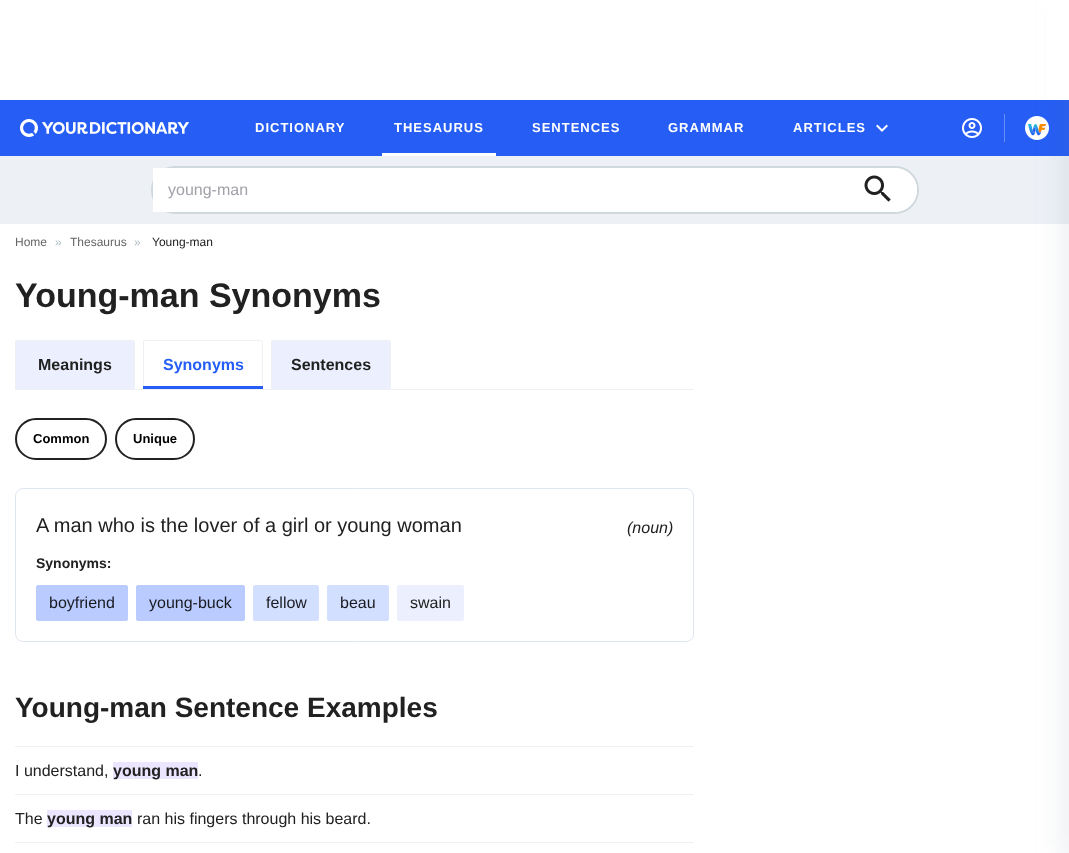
(async () => {
const canvas = document.querySelector("canvas")
canvas.width = 1069
canvas.height = 853
const c = canvas.getContext("2d")
c.miterLimit = 4
c.fontKerning = "normal"
function T(s,x,y){c.fillText(s,x,y)}
function R(x,y,w,h){c.fillRect(x,y,w,h)}
function Q(x,y,w,h,r){c.beginPath();c.roundRect(x,y,w,h,r);c.fill()}
async function I(src,x,y,w,h){const img=new Image();img.src=src;await img.decode();c.drawImage(img,x,y,w,h)}
c.fillStyle="#fff"
R(0,0,1069,853)
c.fillStyle="#265ef5"
R(0,100,1069,56)
await I("4.png",1025,116,24,24)
c.fillStyle="#edf1f6"
R(0,156,1069,68)
c.fillStyle="#546e7a1f"
c.filter="blur(15px)"
c.beginPath()
c.rect(1064,1,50,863)
c.fill()
c.filter="none"
c.fillStyle="#fff"
R(1047,0,22,100)
await I("1.png",20,119,169,18)
c.letterSpacing="1px"
c.font="bold 13px Liberation Sans"
T("DICTIONARY",255,132)
T("THESAURUS",394,132)
R(382,153,114,3)
T("SENTENCES",532,132)
T("GRAMMAR",668,132)
T("ARTICLES",793,132)
await I("2.png",876,124,12,8)
c.fillStyle="#678ef8"
R(1004,114,1,28)
await I("3.png",962,118,20,20)
c.fillStyle="#fff"
c.beginPath()
c.roundRect(152,167,766,46,23)
c.fill()
c.strokeStyle="#cfd8dc"
c.lineWidth=2
c.stroke()
R(153,168,21,44)
c.letterSpacing="0px"
c.font="16px Liberation Sans"
c.fillStyle="#a1a1aa"
T("young-man",168,195)
c.fillStyle="#fff"
Q(857,168,60,44,22)
await I("5.png",864,175,27,27)
c.font="12px Liberation Sans"
c.fillStyle="#666"
T("Home",15,246)
c.fillStyle="#b0bec5"
T("»",55,246)
c.fillStyle="#666"
T("Thesaurus",70,246)
c.fillStyle="#b0bec5"
T("»",134,246)
c.fillStyle="#212121"
T("Young-man",152,246)
c.font="bold 34px Liberation Sans"
T("Young-man Synonyms",15,307)
c.fillStyle="#edf1f6"
R(15,389,679,1)
c.fillStyle="#ecf0fe"
c.beginPath()
c.roundRect(16,341,118,48,[1,1,0,0])
c.fill()
c.fillStyle="#edf1f6"
R(16,340,118,1)
R(134,341,1,48)
R(15,341,1,48)
c.font="bold 16px Liberation Sans"
c.fillStyle="#212121"
T("Meanings",38,370)
c.fillStyle="#edf1f6"
R(144,340,118,1)
R(262,341,1,48)
R(143,341,1,48)
c.fillStyle="#265ef5"
T("Synonyms",163,370)
R(143,386,120,3)
c.fillStyle="#ecf0fe"
c.beginPath()
c.roundRect(272,341,118,48,[1,1,0,0])
c.fill()
c.fillStyle="#edf1f6"
R(272,340,118,1)
R(390,341,1,48)
R(271,341,1,48)
c.fillStyle="#212121"
T("Sentences",291,370)
c.beginPath()
c.roundRect(16,419,90,40,20)
c.strokeStyle="#212121"
c.stroke()
c.font="bold 13px Liberation Sans"
c.fillStyle="#000"
T("Common",33,443)
c.beginPath()
c.roundRect(116,419,78,40,20)
c.stroke()
T("Unique",133,443)
c.beginPath()
c.roundRect(15.5,488.5,678,153,7.5)
c.strokeStyle="#dfe6ef"
c.lineWidth=1
c.stroke()
c.font="20px Liberation Sans"
c.fillStyle="#212121"
T("A man who is the lover of a girl or young woman",36,532)
c.font="italic 16px Liberation Sans"
T("(noun)",627,533)
c.font="bold 14px Liberation Sans"
T("Synonyms:",36,568)
c.fillStyle="#bacbff"
c.beginPath()
c.roundRect(36.5,585.5,91,35,1.5)
c.fill()
c.strokeStyle="#bacbff"
c.stroke()
c.font="16px Liberation Sans"
c.fillStyle="#181a21"
T("boyfriend",49,608)
c.fillStyle="#bacbff"
c.beginPath()
c.roundRect(136.5,585.5,108,35,1.5)
c.fill()
c.stroke()
c.fillStyle="#181a21"
T("young-buck",149,608)
c.fillStyle="#d3dfff"
c.beginPath()
c.roundRect(253.5,585.5,65,35,1.5)
c.fill()
c.strokeStyle="#d3dfff"
c.stroke()
c.fillStyle="#181a21"
T("fellow",266,608)
c.fillStyle="#d3dfff"
c.beginPath()
c.roundRect(327.5,585.5,61,35,1.5)
c.fill()
c.stroke()
c.fillStyle="#181a21"
T("beau",340,608)
c.fillStyle="#ecf0fe"
c.beginPath()
c.roundRect(397.5,585.5,66,35,1.5)
c.fill()
c.strokeStyle="#ecf0fe"
c.stroke()
c.fillStyle="#212121"
T("swain",410,608)
c.fillStyle="#edf1f6"
R(15,746,679,1)
c.font="bold 28px Liberation Sans"
c.fillStyle="#212121"
T("Young-man Sentence Examples",15,717)
c.fillStyle="#edf1f6"
R(15,794,679,1)
c.font="16px Liberation Sans"
c.fillStyle="#212121"
T("I understand,",15,776)
c.fillStyle="#ece5ff"
R(113,762,85,17)
c.font="bold 16px Liberation Sans"
c.fillStyle="#212121"
T("young man",113,776)
c.font="16px Liberation Sans"
T(".",198,776)
c.fillStyle="#edf1f6"
R(15,842,679,1)
c.fillStyle="#212121"
T("The",15,824)
c.fillStyle="#ece5ff"
R(47,810,85,17)
c.font="bold 16px Liberation Sans"
c.fillStyle="#212121"
T("young man",47,824)
c.font="16px Liberation Sans"
T("ran his fingers through his beard.",137,824)
})()
